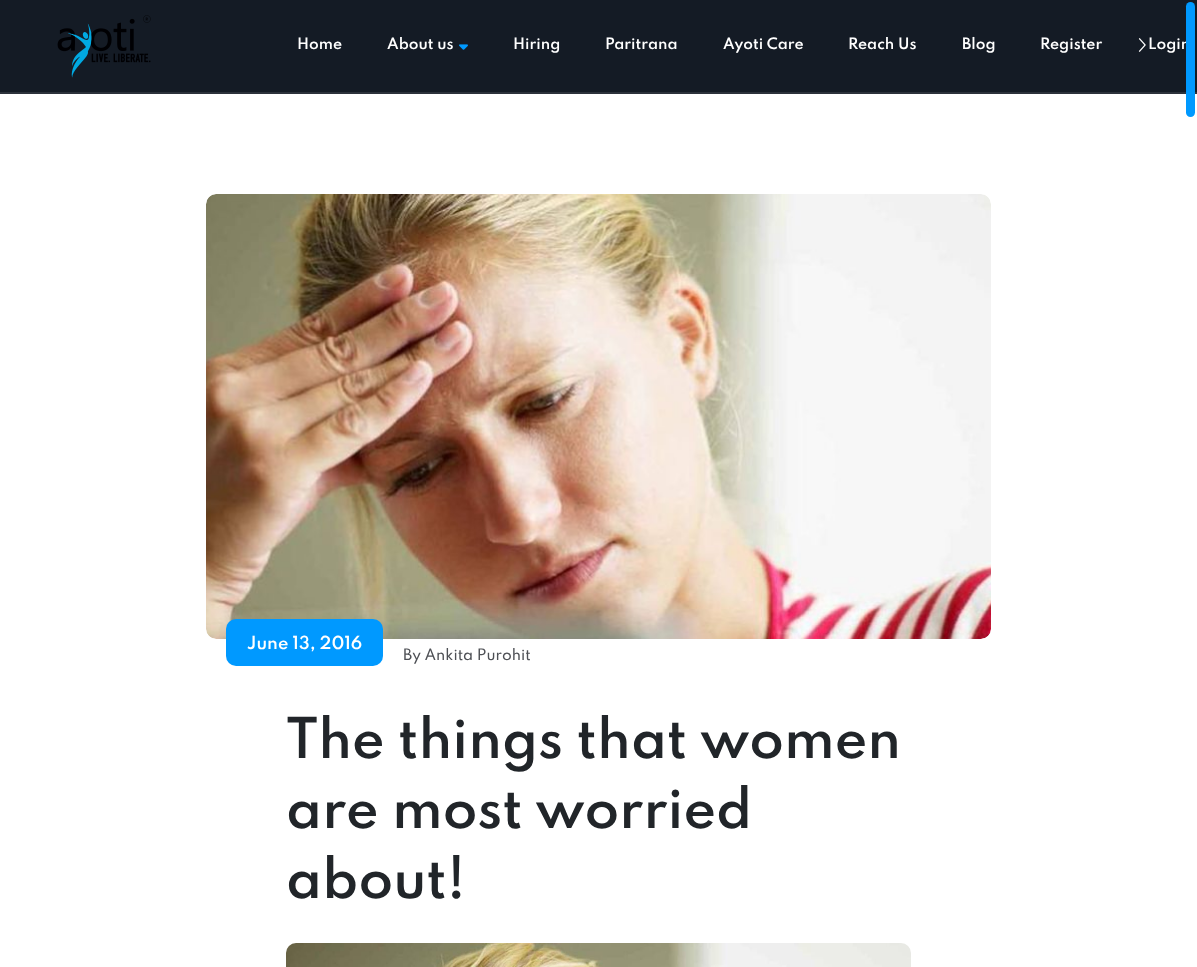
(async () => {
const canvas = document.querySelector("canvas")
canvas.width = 1197
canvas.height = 967
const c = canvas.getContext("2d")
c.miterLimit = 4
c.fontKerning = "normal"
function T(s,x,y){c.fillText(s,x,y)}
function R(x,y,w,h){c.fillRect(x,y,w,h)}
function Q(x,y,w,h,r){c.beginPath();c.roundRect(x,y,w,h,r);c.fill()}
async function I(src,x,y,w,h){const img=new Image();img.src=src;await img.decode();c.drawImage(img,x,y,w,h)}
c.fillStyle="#fff"
R(0,0,1197,967)
c.fillStyle="#141b25"
R(0,0,1197,92)
c.fillStyle="#2c323b"
R(0,92,1197,2)
await I("1.png",57,15,94,63)
c.font="600 14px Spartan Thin"
c.fillStyle="#fff"
T("Home",297,49)
T("About us",387,49)
await I("2.png",459,44,9,6)
T("Hiring",513,49)
T("Paritrana",605,49)
T("Ayoti Care",723,49)
T("Reach Us",848,49)
T("Blog",962,49)
T("Register",1040,49)
T("Login",1148,49)
await I("3.png",1138,38,8,14)
await I("4.png",206,194,785,445)
c.fillStyle="#09f"
Q(226,619,157,47,10)
c.font="600 16px Spartan Thin"
c.fillStyle="#fff"
T("June 13, 2016",247,649)
c.font="500 14px Spartan Thin"
c.fillStyle="#4e5055"
T("By Ankita Purohit",403,660)
c.font="600 50px Spartan Thin"
c.fillStyle="#212529"
T("The things that women",286,758)
T("are most worried",286,828)
T("about!",286,898)
await I("5.png",286,943,625,24)
c.fillStyle="#09f"
Q(1186,2,9,115,4.5)
})()
